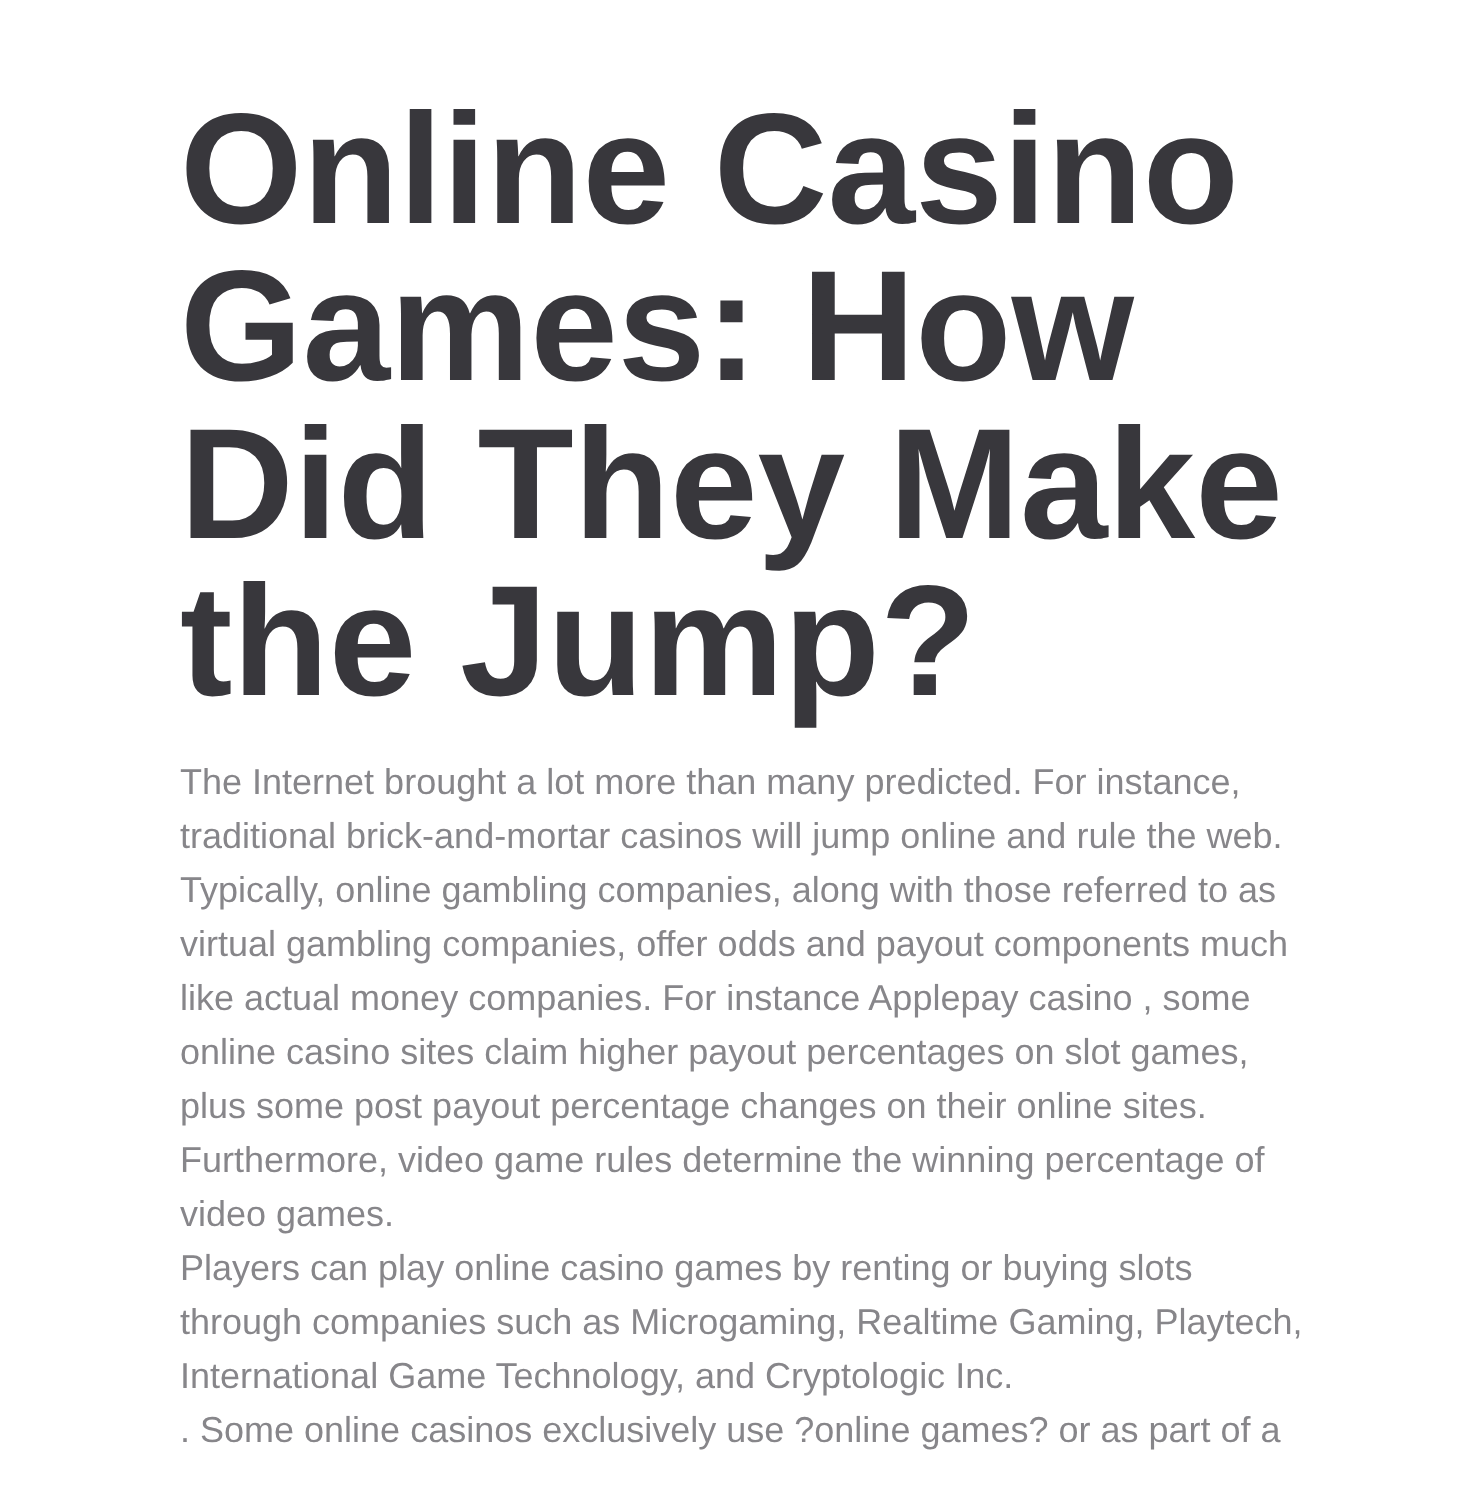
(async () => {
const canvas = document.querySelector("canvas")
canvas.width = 1483
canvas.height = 1488
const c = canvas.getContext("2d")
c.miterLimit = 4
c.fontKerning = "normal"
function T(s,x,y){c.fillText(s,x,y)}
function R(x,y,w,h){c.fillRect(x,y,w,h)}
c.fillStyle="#fff"
R(0,0,1483,1488)
c.font="bold 157.5px Liberation Sans"
c.fillStyle="#38373c"
T("Online Casino",180,223)
T("Games: How",180,380)
T("Did They Make",180,538)
T("the Jump?",180,695)
c.font="36px Liberation Sans"
c.fillStyle="#87868a"
T("The Internet brought a lot more than many predicted. For instance,",180,794)
T("traditional brick-and-mortar casinos will jump online and rule the web.",180,848)
T("Typically, online gambling companies, along with those referred to as",180,902)
T("virtual gambling companies, offer odds and payout components much",180,956)
T("like actual money companies. For instance Applepay casino , some",180,1010)
T("online casino sites claim higher payout percentages on slot games,",180,1064)
T("plus some post payout percentage changes on their online sites.",180,1118)
T("Furthermore, video game rules determine the winning percentage of",180,1172)
T("video games.",180,1226)
T("Players can play online casino games by renting or buying slots",180,1280)
T("through companies such as Microgaming, Realtime Gaming, Playtech,",180,1334)
T("International Game Technology, and Cryptologic Inc.",180,1388)
T(". Some online casinos exclusively use ?online games? or as part of a",180,1442)
})()
